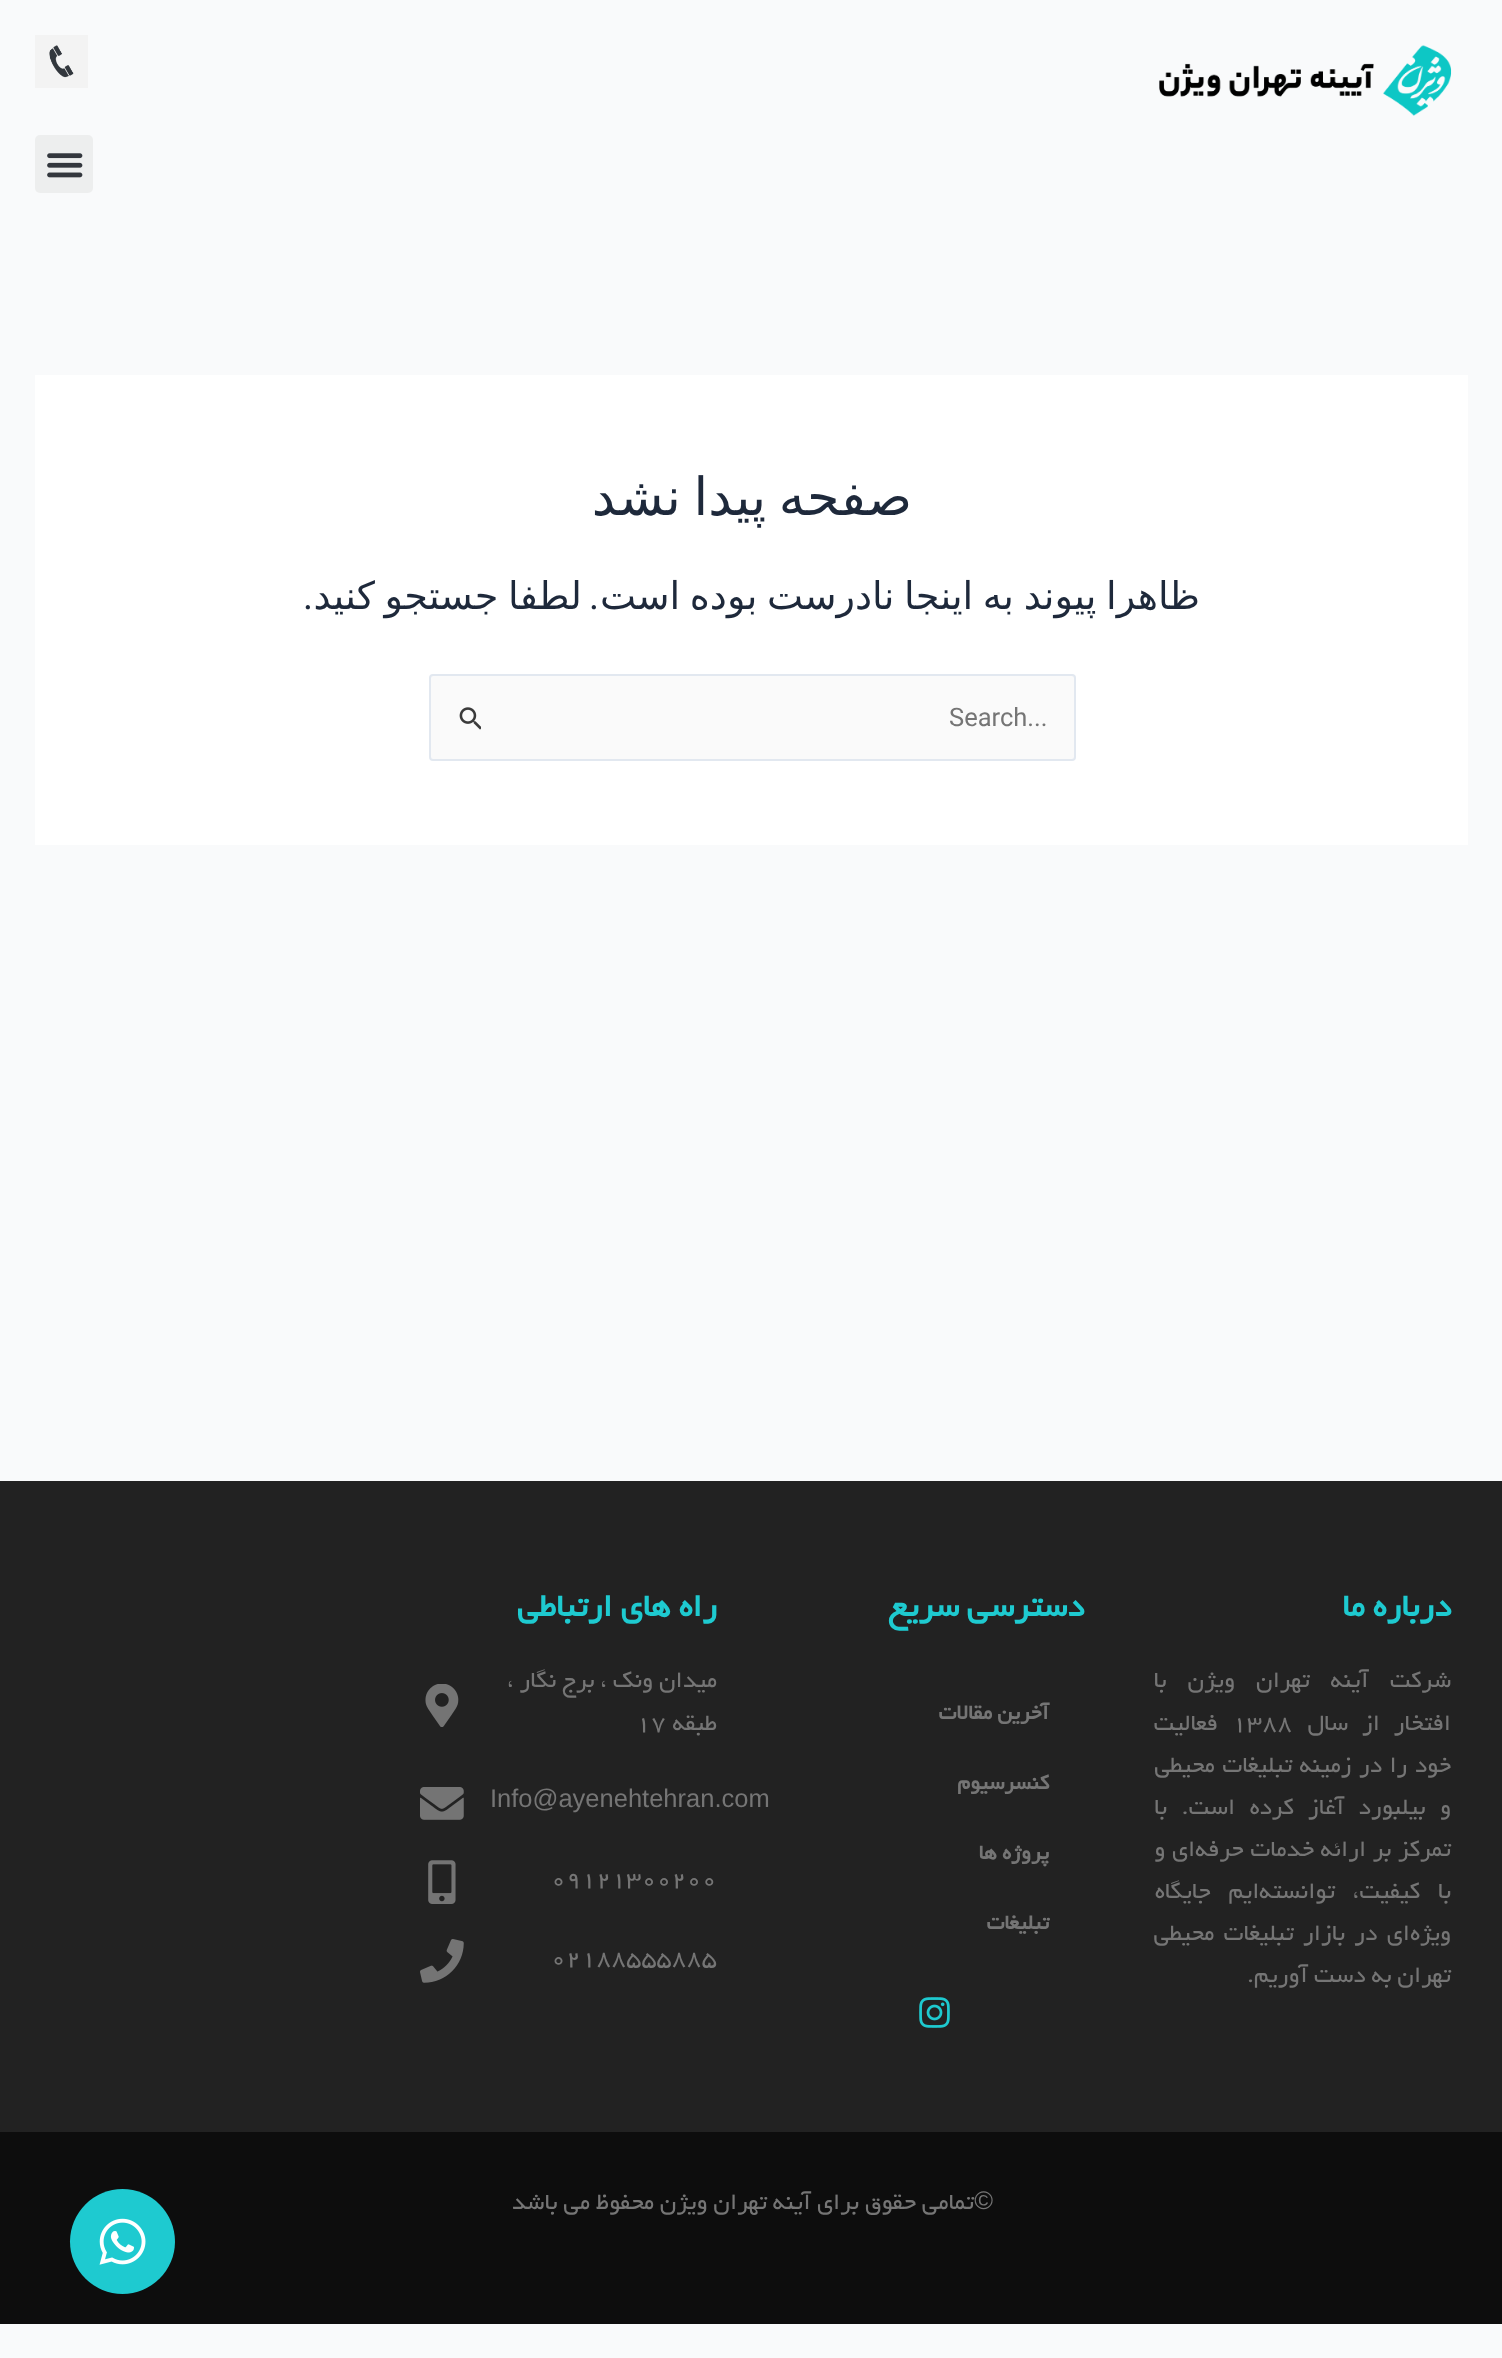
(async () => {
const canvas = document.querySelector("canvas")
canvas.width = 1502
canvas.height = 2358
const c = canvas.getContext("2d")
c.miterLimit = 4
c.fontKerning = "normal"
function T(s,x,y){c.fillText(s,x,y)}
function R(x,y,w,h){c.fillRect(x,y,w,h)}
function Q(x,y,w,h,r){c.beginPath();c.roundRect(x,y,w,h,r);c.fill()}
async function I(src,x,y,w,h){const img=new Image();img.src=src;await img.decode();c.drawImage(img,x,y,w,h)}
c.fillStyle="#f9fafb"
R(0,0,1502,2358)
await I("1.png",1159,45,293,71)
c.fillStyle="#f3f3f3"
R(35,35,53,53)
await I("2.png",49,45,25,33)
c.fillStyle="#edeeee"
Q(35,135,58,58,5)
await I("3.png",47,153,36,25)
c.fillStyle="#fff"
R(35,375,1433,470)
c.wordSpacing="-4px"
c.direction="rtl"
c.font="52.5px DejaVu Sans"
c.fillStyle="#1e293b"
T("صفحه پیدا نشد",912,515)
c.wordSpacing="-2.5px"
c.font="38.25px DejaVu Sans"
T("ظاهرا پیوند به اینجا نادرست بوده است",1200,609)
c.wordSpacing="0px"
c.font="38.25px Roboto"
T(".",599,609)
c.wordSpacing="-2.5px"
c.font="38.25px DejaVu Sans"
T("لطفا جستجو کنید",582,609)
c.wordSpacing="0px"
c.font="38.25px Roboto"
T(".",313,609)
c.fillStyle="#fafafa"
c.beginPath()
c.roundRect(430,675,645,85,3)
c.fill()
c.strokeStyle="#e2e8f0"
c.lineWidth=2
c.stroke()
c.direction="ltr"
c.font="25.5px Roboto"
c.fillStyle="#757575"
T("Search...",949,726)
await I("4.png",459,707,22,23)
c.fillStyle="#222"
R(0,1481,1502,651)
c.direction="rtl"
c.font="bold 35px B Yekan"
c.fillStyle="#1ecad0"
T("درباره ما",1451,1616)
c.wordSpacing="15px"
c.font="25.5px B Yekan"
c.fillStyle="#757575"
T("شرکت آینه تهران ویژن با",1451,1687)
c.wordSpacing="8px"
T("افتخار از سال",1451,1730)
c.wordSpacing="0px"
c.direction="ltr"
T("1388",1232,1730)
c.direction="rtl"
T("فعالیت",1218,1730)
c.wordSpacing="1.5px"
T("خود را در زمینه تبلیغات محیطی",1451,1772)
c.wordSpacing="8.5px"
T("و بیلبورد آغاز کرده است. با",1451,1814)
c.wordSpacing="0.75px"
T("تمرکز بر ارائه خدمات حرفه‌ای و",1451,1856)
c.wordSpacing="12px"
T("با کیفیت، توانسته‌ایم جایگاه",1451,1898)
c.wordSpacing="3.5px"
T("ویژه‌ای در بازار تبلیغات محیطی",1451,1940)
c.wordSpacing="0px"
T("تهران به دست آوریم.",1451,1982)
c.font="bold 35px B Yekan"
c.fillStyle="#1ecad0"
T("دسترسی سریع",1084,1616)
c.font="bold 22.75px B Yekan"
c.fillStyle="#757575"
T("آخرین مقالات",1049,1719)
T("کنسرسیوم",1049,1789)
T("پروژه ها",1049,1859)
T("تبلیغات",1049,1929)
await I("5.png",919,1997,31,31)
c.font="bold 35px B Yekan"
c.fillStyle="#1ecad0"
T("راه های ارتباطی",717,1616)
c.font="25.5px B Yekan"
c.fillStyle="#757575"
T("میدان ونک ، برج نگار ،",717,1687)
T("طبقه",717,1730)
c.direction="ltr"
T("17",636,1730)
await I("6.png",425,1684,34,43)
c.font="25.5px Liberation Sans"
T("Info@ayenehtehran.com",490,1807)
await I("7.png",420,1787,44,33)
c.font="25.5px B Yekan"
T("09121300200",551,1886)
await I("8.png",428,1860,28,44)
T("02188555885",551,1965)
await I("9.png",420,1939,44,44)
c.fillStyle="#0d0d0d"
R(0,2132,1502,192)
c.direction="rtl"
c.fillStyle="#757575"
T("تمامی حقوق برای آینه تهران ویژن محفوظ می باشد",974,2209)
c.font="25.5px Liberation Sans"
T("©",993,2209)
c.fillStyle="#1ecad0"
c.beginPath()
c.arc(122.5,2241.5,52.5,0,7)
c.fill()
await I("10.png",99,2218,47,47)
})()
